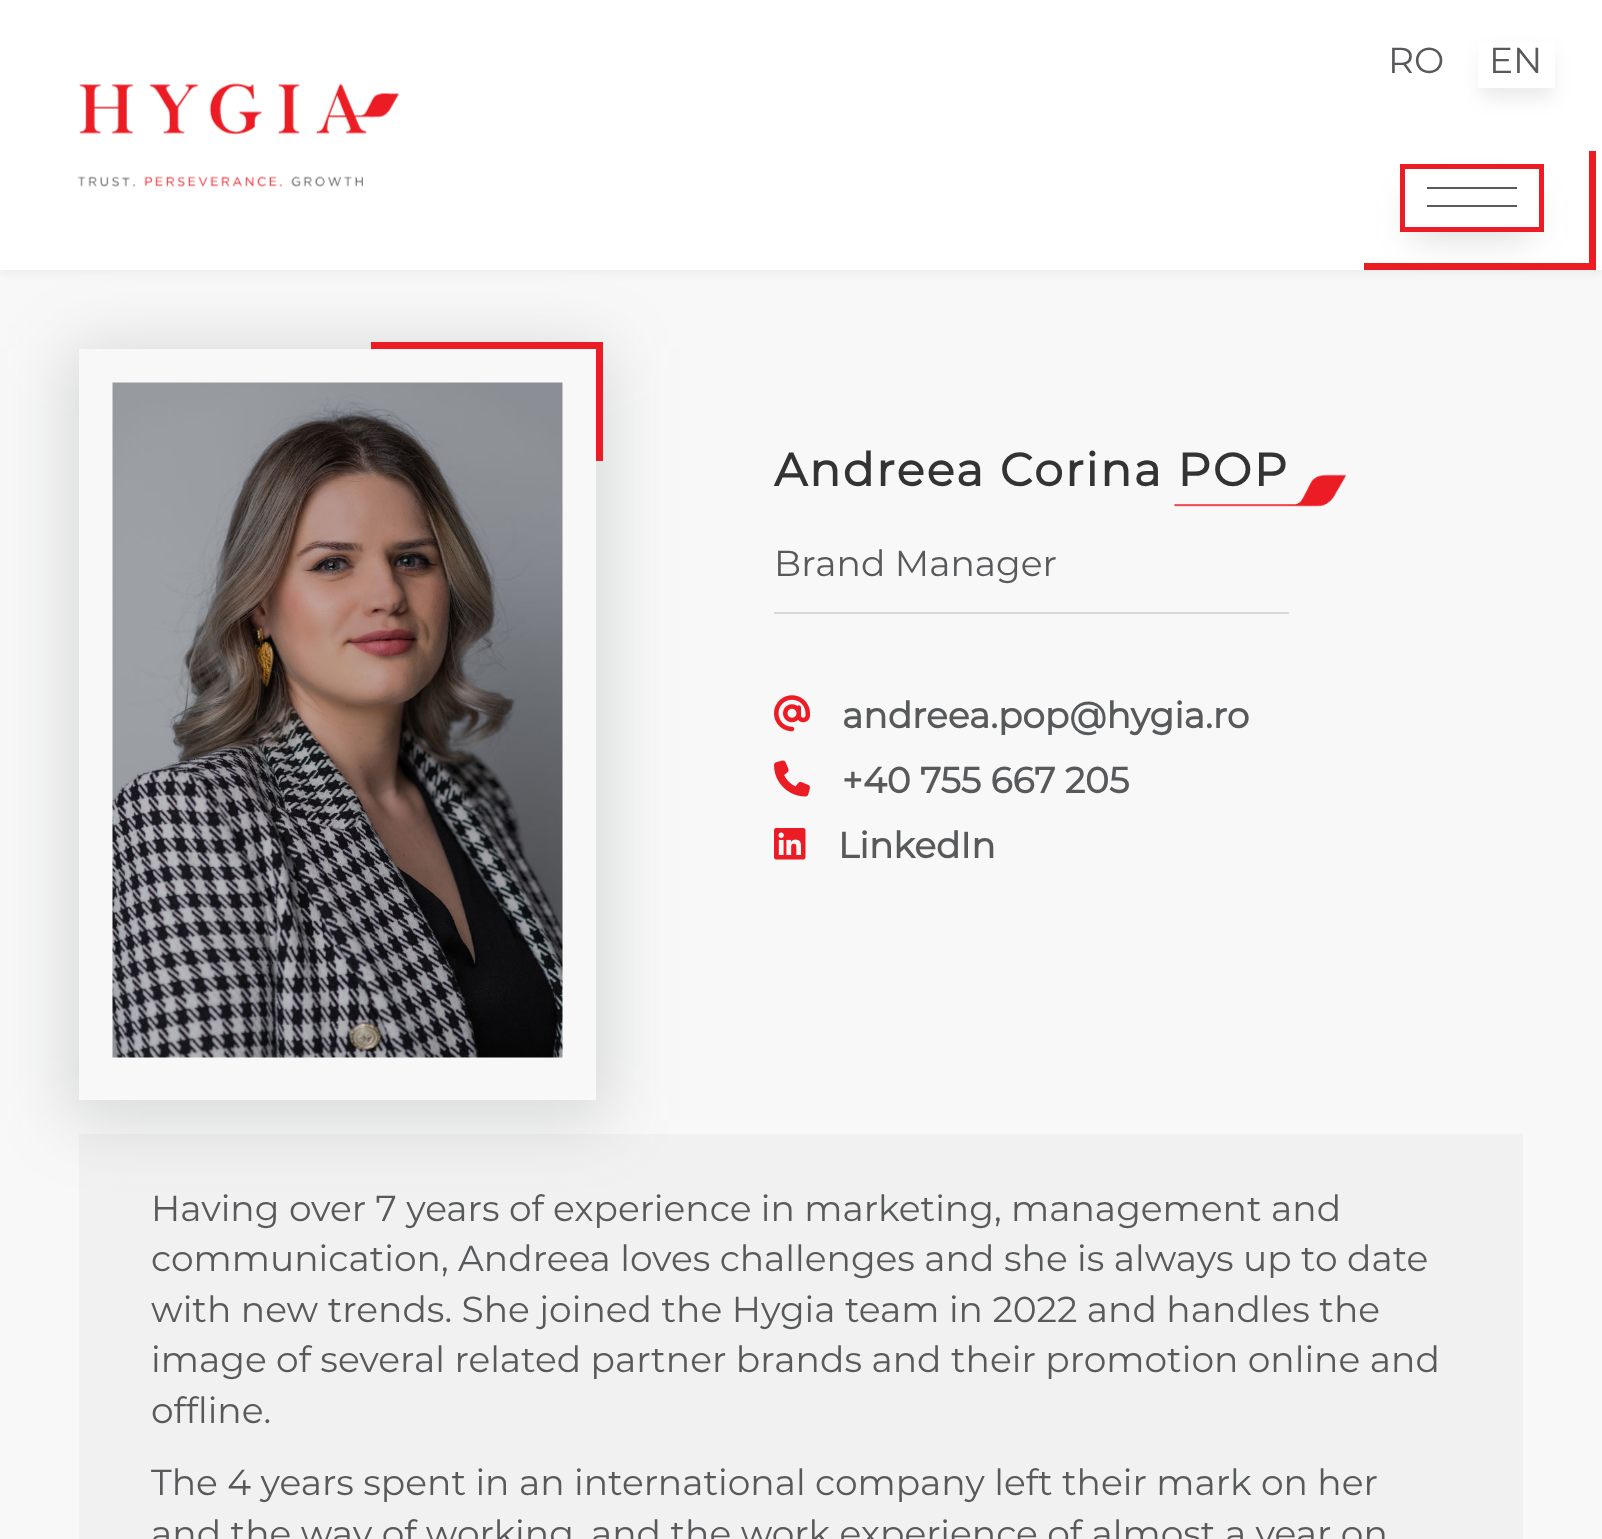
(async () => {
const canvas = document.querySelector("canvas")
canvas.width = 1602
canvas.height = 1539
const c = canvas.getContext("2d")
c.miterLimit = 4
c.fontKerning = "normal"
function T(s,x,y){c.fillText(s,x,y)}
function R(x,y,w,h){c.fillRect(x,y,w,h)}
async function I(src,x,y,w,h){const img=new Image();img.src=src;await img.decode();c.drawImage(img,x,y,w,h)}
let path
c.fillStyle="#f8f8f8"
R(0,0,1602,1539)
c.fillStyle="#0000000f"
c.filter="blur(5.5px)"
c.beginPath()
c.rect(-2,-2,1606,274)
c.fill()
c.filter="none"
c.fillStyle="#f1f1f1"
R(79,1134,1444,405)
c.save()
path = new Path2D("M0 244h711v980h-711zm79 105h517v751h-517z")
c.clip(path,"evenodd")
c.fillStyle="#57595b33"
c.filter="blur(34px)"
c.beginPath()
c.rect(68,347,540,774)
c.fill()
c.filter="none"
c.restore()
c.fillStyle="#fff"
R(0,0,1602,270)
c.font="36px Montserrat"
c.fillStyle="#58595b"
T("RO",1388,73)
c.fillStyle="#58595b1f"
c.filter="blur(9px)"
c.beginPath()
c.rect(1481,52,72,47)
c.fill()
c.filter="none"
c.fillStyle="#fff"
R(1478,42,77,46)
c.fillStyle="#58595b"
T("EN",1489,73)
c.fillStyle="#ec1c24"
R(1589,151,7,119)
R(1364,263,231,7)
c.fillStyle="#57595b33"
c.filter="blur(17px)"
c.beginPath()
c.rect(1411,194,121,45)
c.fill()
c.filter="none"
c.fillStyle="#fff"
R(1405,170,134,57)
c.strokeStyle="#ec1c24"
c.lineWidth=5
c.strokeRect(1402.5,166.5,139,63)
c.fillStyle="#58595b"
R(1427,187,90,2)
R(1427,205,90,2)
await I("1.png",77,83,322,104)
c.fillStyle="#ec1c24"
R(371,342,232,7)
R(596,342,7,119)
await I("2.png",112,382,451,676)
c.letterSpacing="2.25px"
c.font="bold 46.1px Montserrat"
c.fillStyle="#333"
T("Andreea Corina POP",774,486)
await I("3.png",1174,474,172,33)
c.fillStyle="#d8d8d9"
R(774,612,515,2)
c.letterSpacing="0px"
c.font="36px Montserrat"
c.fillStyle="#58595b"
T("Brand Manager",774,576)
await I("4.png",774,695,36,37)
c.font="bold 36px Montserrat"
T("andreea.pop@hygia.ro",842,728)
await I("5.png",774,760,36,37)
T("+40 755 667 205",842,793)
await I("6.png",774,828,32,32)
T("LinkedIn",838,858)
c.font="36px Montserrat"
T("Having over 7 years of experience in marketing, management and",151,1221)
T("communication, Andreea loves challenges and she is always up to date",151,1271)
T("with new trends. She joined the Hygia team in 2022 and handles the",151,1322)
T("image of several related partner brands and their promotion online and",151,1372)
T("offline.",151,1423)
T("The 4 years spent in an international company left their mark on her",151,1495)
T("and the way of working, and the work experience of almost a year on",151,1546)
})()
